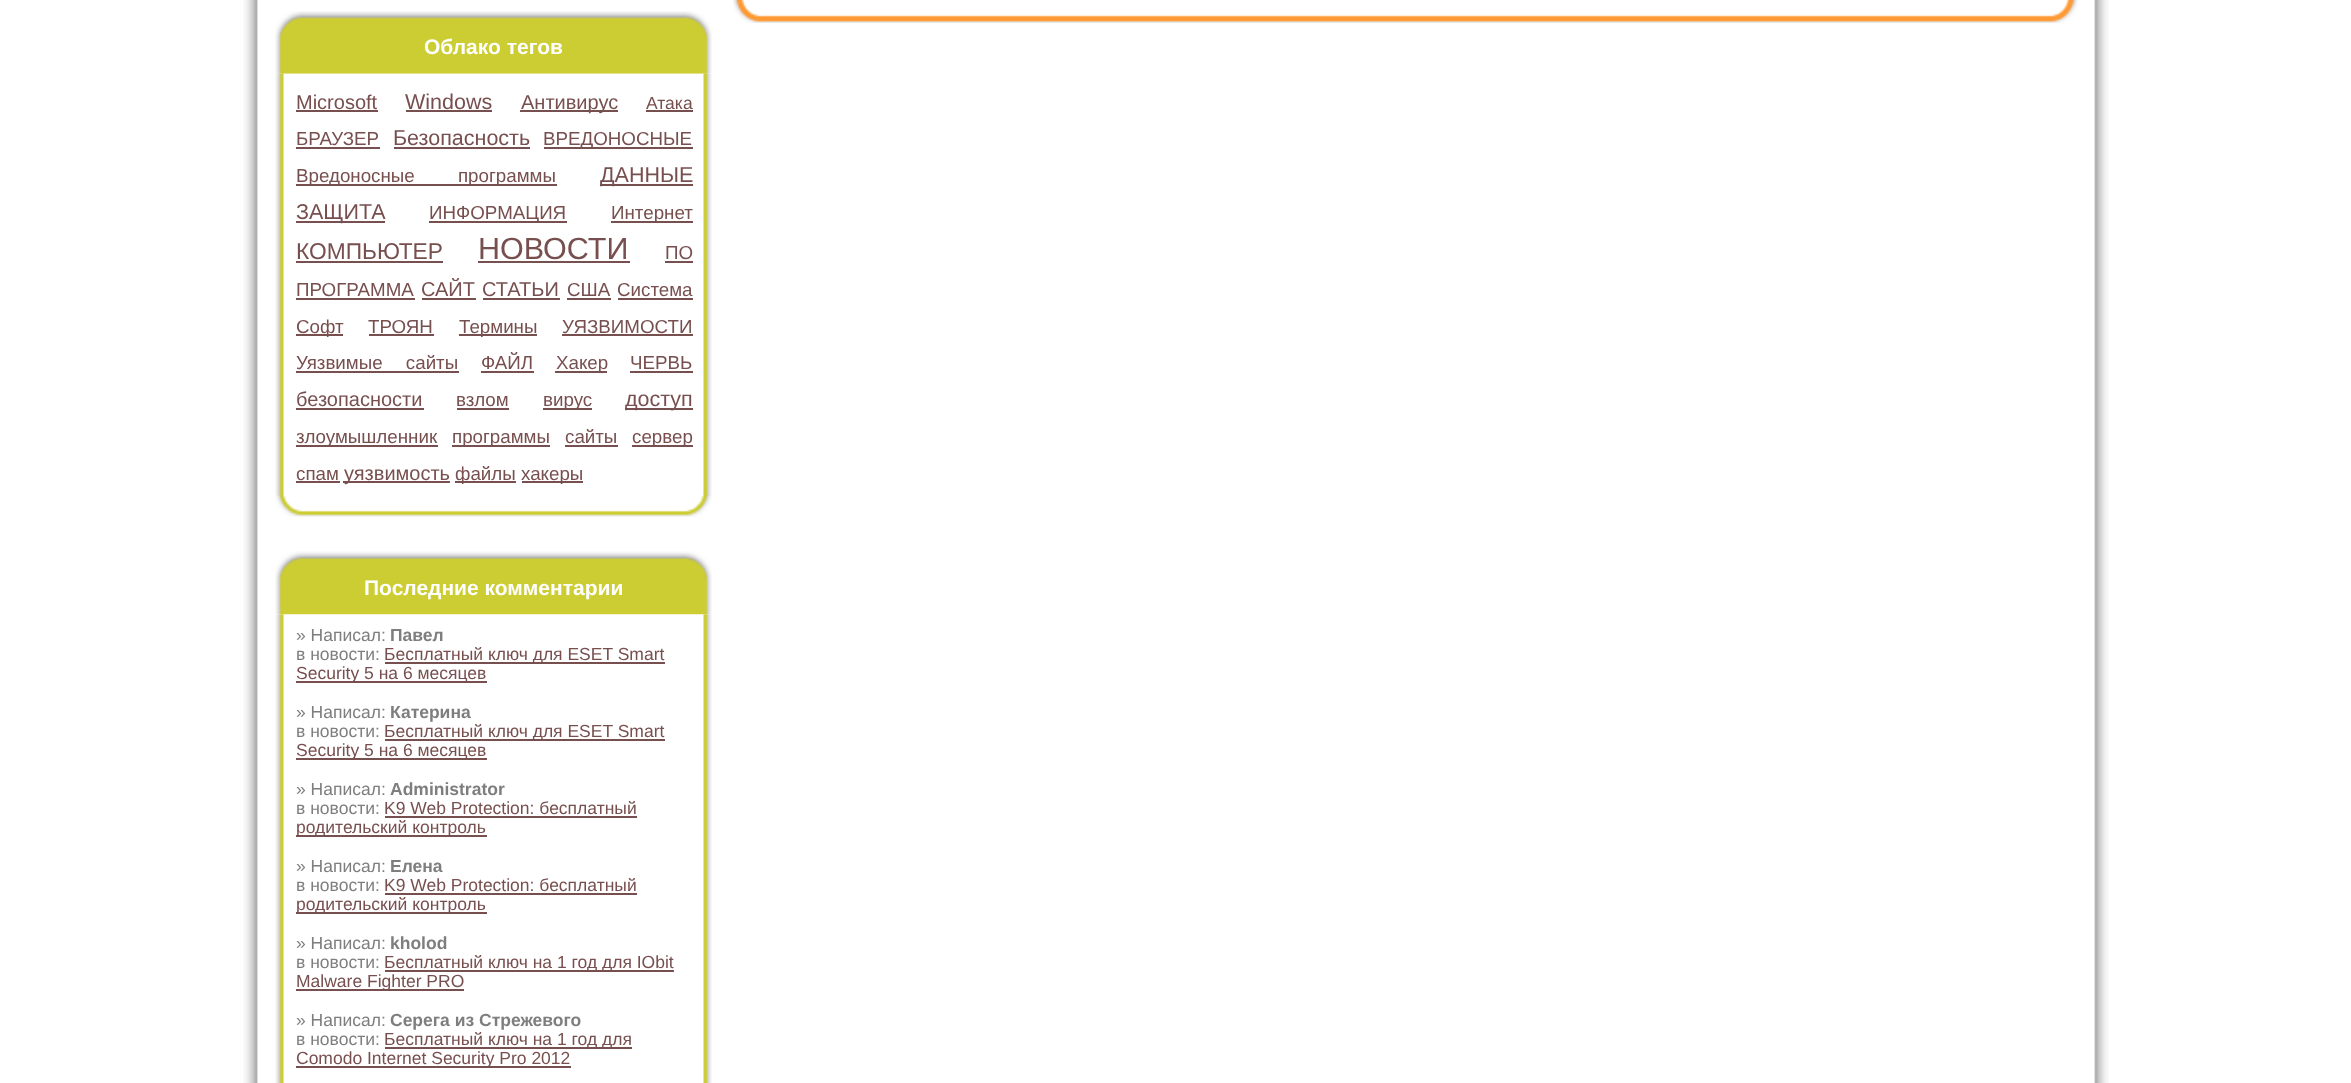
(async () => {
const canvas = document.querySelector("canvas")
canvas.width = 2351
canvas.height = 1083
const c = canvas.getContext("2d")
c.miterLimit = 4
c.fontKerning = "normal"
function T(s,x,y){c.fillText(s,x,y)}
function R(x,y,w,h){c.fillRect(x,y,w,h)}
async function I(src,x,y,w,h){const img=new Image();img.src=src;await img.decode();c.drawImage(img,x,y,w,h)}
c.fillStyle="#fff"
R(0,0,2351,1083)
await I("1.png",243,0,1866,1083)
await I("2.png",733,0,1345,23)
await I("3.png",275,495,437,22)
await I("4.png",275,11,437,63)
c.font="bold 21px Liberation Sans"
T("Облако тегов",424,54)
await I("5.png",275,73,437,423)
c.font="20px Liberation Sans"
c.fillStyle="#784f4f"
T("Microsoft",296,109)
R(296,110,82,2)
c.font="21.5px Liberation Sans"
T("Windows",405,109)
R(406,110,86,2)
R(520,110,98,2)
c.font="20px Liberation Sans"
T("Антивирус",521,109)
c.font="17.5px Liberation Sans"
T("Атака",646,109)
R(646,110,47,2)
c.font="18.75px Liberation Sans"
T("БРАУЗЕР",296,145)
R(296,147,84,2)
c.font="21.5px Liberation Sans"
T("Безопасность",393,145)
R(394,147,136,2)
R(544,147,149,2)
c.font="18.75px Liberation Sans"
T("ВРЕДОНОСНЫЕ",543,145)
R(296,184,261,2)
c.wordSpacing="38px"
T("Вредоносные программы",296,182)
R(600,184,93,2)
c.wordSpacing="0px"
c.font="21.5px Liberation Sans"
T("ДАННЫЕ",600,182)
R(296,221,89,2)
T("ЗАЩИТА",296,219)
R(429,221,138,2)
c.font="18.75px Liberation Sans"
T("ИНФОРМАЦИЯ",429,219)
R(611,221,82,2)
T("Интернет",611,219)
c.font="22.75px Liberation Sans"
T("КОМПЬЮТЕР",296,259)
R(296,261,147,2)
c.font="30.5px Liberation Sans"
T("НОВОСТИ",478,259)
R(478,261,152,2)
c.font="18.75px Liberation Sans"
T("ПО",665,259)
R(665,261,28,2)
T("ПРОГРАММА",296,296)
R(296,298,119,2)
c.font="20px Liberation Sans"
T("САЙТ",421,296)
R(422,298,54,2)
T("СТАТЬИ",482,296)
R(483,298,77,2)
c.font="18.75px Liberation Sans"
T("США",567,296)
R(567,298,44,2)
T("Система",617,296)
R(618,298,75,2)
R(296,334,47,2)
T("Софт",296,333)
T("ТРОЯН",368,333)
R(369,334,65,2)
R(459,334,78,2)
T("Термины",459,333)
T("УЯЗВИМОСТИ",562,333)
R(562,334,131,2)
c.wordSpacing="18px"
T("Уязвимые сайты",296,369)
R(296,371,163,2)
c.wordSpacing="0px"
T("ФАЙЛ",481,369)
R(481,371,53,2)
R(555,371,52,2)
T("Хакер",556,369)
T("ЧЕРВЬ",630,369)
R(630,371,63,2)
c.font="20px Liberation Sans"
T("безопасности",296,406)
R(296,408,128,2)
c.font="18.75px Liberation Sans"
T("взлом",456,406)
R(457,408,52,2)
R(543,408,49,2)
T("вирус",543,406)
R(625,408,68,2)
c.font="21.5px Liberation Sans"
T("доступ",625,406)
R(296,445,142,2)
c.font="18.75px Liberation Sans"
T("злоумышленник",296,443)
R(452,445,98,2)
T("программы",452,443)
T("сайты",565,443)
R(565,445,53,2)
R(632,445,61,2)
T("сервер",632,443)
T("спам",296,480)
R(296,481,44,2)
R(343,481,107,2)
c.font="20px Liberation Sans"
T("уязвимость",344,480)
R(455,481,61,2)
c.font="18.75px Liberation Sans"
T("файлы",455,480)
R(522,481,61,2)
T("хакеры",521,480)
await I("6.png",275,551,437,64)
c.font="bold 21px Liberation Sans"
c.fillStyle="#fff"
T("Последние комментарии",364,595)
await I("7.png",275,614,437,469)
c.font="17.5px Liberation Sans"
c.fillStyle="#7e7e7e"
T("» Написал:",296,641)
c.font="bold 17.5px Liberation Sans"
T("Павел",390,641)
c.font="17.5px Liberation Sans"
T("в новости:",296,660)
c.fillStyle="#784f4f"
R(385,662,280,2)
T("Бесплатный ключ для ESET Smart",384,660)
R(296,681,191,2)
T("Security 5 на 6 месяцев",296,679)
c.fillStyle="#7e7e7e"
T("» Написал:",296,718)
c.font="bold 17.5px Liberation Sans"
T("Катерина",390,718)
c.font="17.5px Liberation Sans"
T("в новости:",296,737)
c.fillStyle="#784f4f"
R(385,739,280,2)
T("Бесплатный ключ для ESET Smart",384,737)
R(296,758,191,2)
T("Security 5 на 6 месяцев",296,756)
c.fillStyle="#7e7e7e"
T("» Написал:",296,795)
c.font="bold 17.5px Liberation Sans"
T("Administrator",390,795)
c.font="17.5px Liberation Sans"
T("в новости:",296,814)
c.fillStyle="#784f4f"
T("K9 Web Protection: бесплатный",384,814)
R(385,816,252,2)
R(296,835,191,2)
T("родительский контроль",296,833)
c.fillStyle="#7e7e7e"
T("» Написал:",296,872)
c.font="bold 17.5px Liberation Sans"
T("Елена",390,872)
c.font="17.5px Liberation Sans"
T("в новости:",296,891)
c.fillStyle="#784f4f"
T("K9 Web Protection: бесплатный",384,891)
R(385,893,252,2)
R(296,912,191,2)
T("родительский контроль",296,910)
c.fillStyle="#7e7e7e"
T("» Написал:",296,949)
c.font="bold 17.5px Liberation Sans"
T("kholod",390,949)
c.font="17.5px Liberation Sans"
T("в новости:",296,968)
c.fillStyle="#784f4f"
R(385,970,289,2)
T("Бесплатный ключ на 1 год для IObit",384,968)
R(296,989,168,2)
T("Malware Fighter PRO",296,987)
c.fillStyle="#7e7e7e"
T("» Написал:",296,1026)
c.font="bold 17.5px Liberation Sans"
T("Серега из Стрежевого",390,1026)
c.font="17.5px Liberation Sans"
T("в новости:",296,1045)
c.fillStyle="#784f4f"
R(385,1047,247,2)
T("Бесплатный ключ на 1 год для",384,1045)
R(296,1066,275,2)
T("Comodo Internet Security Pro 2012",296,1064)
})()
